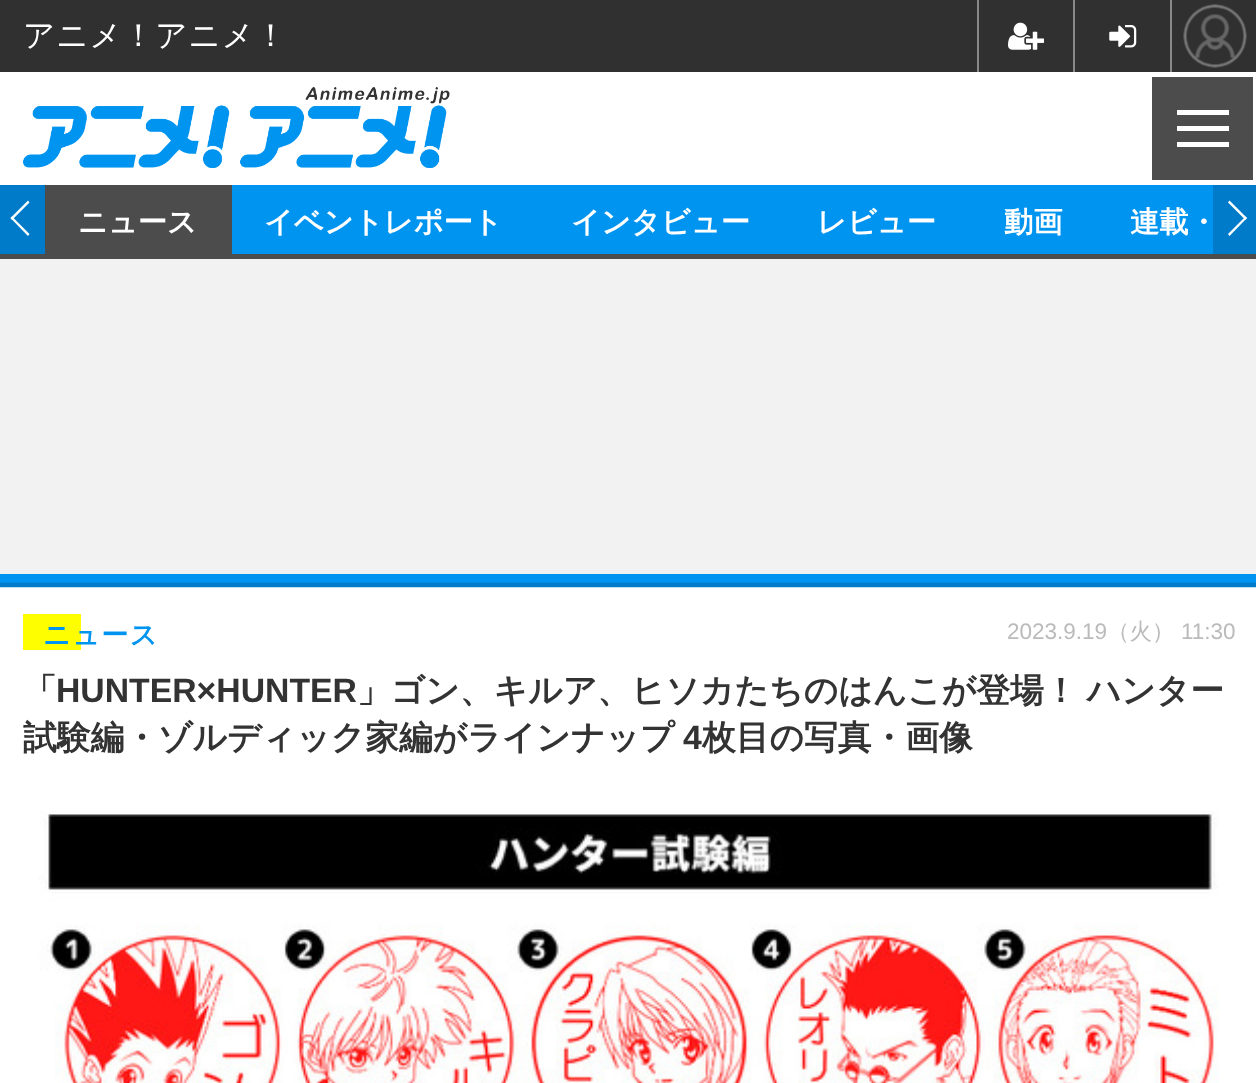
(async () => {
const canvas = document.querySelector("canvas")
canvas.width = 1256
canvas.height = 1083
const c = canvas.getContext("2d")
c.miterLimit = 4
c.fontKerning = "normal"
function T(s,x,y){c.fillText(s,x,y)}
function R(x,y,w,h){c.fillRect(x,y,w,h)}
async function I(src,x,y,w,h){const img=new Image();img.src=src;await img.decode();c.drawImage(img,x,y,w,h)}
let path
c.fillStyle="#fff"
R(0,0,1256,1083)
c.fillStyle="#303030"
R(0,0,1256,72)
c.letterSpacing="1px"
c.font="500 31.5px WenQuanYi Zen Hei"
c.fillStyle="#fff"
T("アニメ！アニメ！",23,46)
c.fillStyle="#888"
R(977,0,2,72)
await I("1.png",1008,22,36,28)
R(1170,0,2,72)
R(1073,0,2,72)
await I("2.png",1109,25,28,23)
await I("3.png",1183,4,64,64)
await I("4.png",23,87,427,81)
c.fillStyle="#4c4c4c"
R(1152,77,101,103)
c.fillStyle="#fff"
R(1177,110,52,5)
R(1177,142,52,5)
R(1177,126,52,5)
c.fillStyle="#0094f1"
R(232,185,981,69)
c.fillStyle="#4c4c4c"
R(0,254,1256,5)
c.fillStyle="#007bc9"
R(0,185,45,69)
c.fillStyle="#fff"
path = new Path2D("M12 216.5l17.5 17.5l-1.5 2l-17.5-18z")
c.fill(path)
path = new Path2D("M28 200.5l1.5 2l-17.5 17.5l-1.5-2z")
c.fill(path)
c.fillStyle="#4c4c4c"
R(45,185,187,69)
c.letterSpacing="0px"
c.font="bold 29.25px WenQuanYi Zen Hei"
c.fillStyle="#fff"
T("ニュース",78,232)
T("イベントレポート",264,232)
T("インタビュー",571,232)
T("レビュー",817,232)
T("動画",1004,232)
T("連載・",1130,232)
c.fillStyle="#007bc9"
R(1213,185,43,69)
c.fillStyle="#fff"
path = new Path2D("M1229.5 200.5l17.5 17.5l-1.5 2l-17.5-17.5z")
c.fill(path)
path = new Path2D("M1245.5 216.5l1.5 1.5l-17.5 18l-1.5-2z")
c.fill(path)
c.fillStyle="#f2f2f2"
R(0,259,1256,315)
await I("5.png",0,574,1256,14)
c.fillStyle="#fffe00"
R(23,614,58,36)
c.font="22.5px Liberation Sans"
c.fillStyle="#bbb"
T("2023.9.19",1007,639)
c.font="500 22.5px WenQuanYi Zen Hei"
T("（火）",1107,639)
c.font="22.5px Liberation Sans"
T("11:30",1181,639)
c.letterSpacing="1.5px"
c.font="bold 27px WenQuanYi Zen Hei"
c.fillStyle="#0094f1"
T("ニュース",43,644)
c.letterSpacing="0px"
c.font="bold 33.75px WenQuanYi Zen Hei"
c.fillStyle="#333"
T("「",23,702)
c.font="bold 33.75px Liberation Sans"
T("HUNTER×HUNTER",56,702)
c.wordSpacing="-1px"
c.font="bold 33.75px WenQuanYi Zen Hei"
T("」ゴン、キルア、ヒソカたちのはんこが登場！ ハンター",357,702)
c.wordSpacing="0px"
T("試験編・ゾルディック家編がラインナップ",23,749)
c.font="bold 33.75px Liberation Sans"
T("4",683,749)
c.font="bold 33.75px WenQuanYi Zen Hei"
T("枚目の写真・画像",702,749)
await I("6.png",39,811,1180,272)
})()
